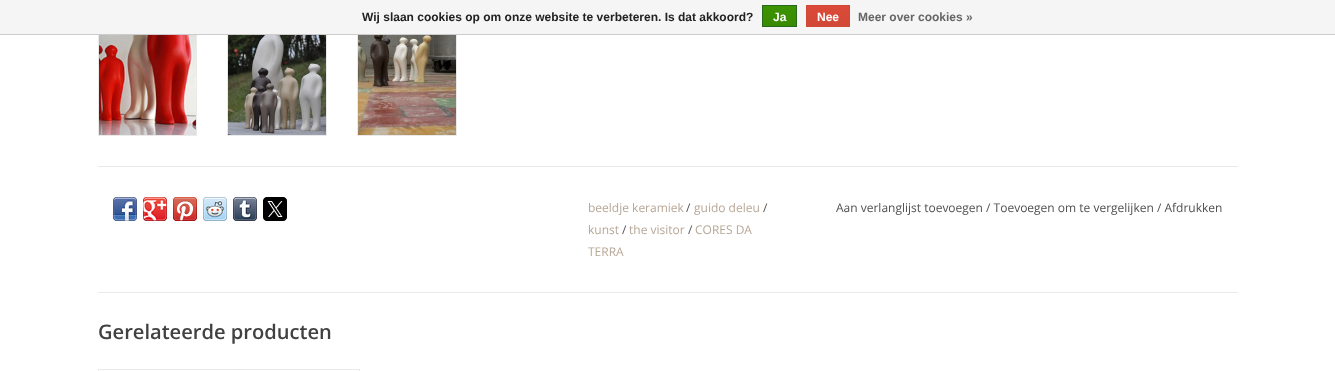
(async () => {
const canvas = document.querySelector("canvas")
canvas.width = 1335
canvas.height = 371
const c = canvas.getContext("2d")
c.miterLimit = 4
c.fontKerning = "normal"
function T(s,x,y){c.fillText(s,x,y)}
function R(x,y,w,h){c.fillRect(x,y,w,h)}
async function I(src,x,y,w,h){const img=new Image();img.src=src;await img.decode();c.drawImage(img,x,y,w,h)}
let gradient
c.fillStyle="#fff"
R(0,0,1335,371)
c.strokeStyle="#eaeaea"
c.strokeRect(98.5,-.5,98,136)
c.strokeRect(227.5,-.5,99,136)
c.strokeRect(357.5,-.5,99,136)
c.fillStyle="#f5f5f5"
R(0,0,1335,34)
c.fillStyle="#ccc"
R(0,34,1335,1)
c.font="bold 12px Liberation Sans"
c.fillStyle="#222"
T("Wij slaan cookies op om onze website te verbeteren. Is dat akkoord?",362,21)
gradient = c.createLinearGradient(780,6,780,26)
gradient.addColorStop(0,"#3c9300")
gradient.addColorStop(1,"#398a00")
c.fillStyle = gradient
R(763,6,33,20)
c.strokeStyle="#29691d"
c.strokeRect(762.5,5.5,34,21)
c.fillStyle="#fff"
T("Ja",773,21)
gradient = c.createLinearGradient(828,6,828,26)
gradient.addColorStop(0,"#dc4a38")
gradient.addColorStop(1,"#d14836")
c.fillStyle = gradient
R(807,6,42,20)
c.strokeStyle="#d14836"
c.strokeRect(806.5,5.5,43,21)
c.fillStyle="#fff"
T("Nee",817,21)
c.fillStyle="#666"
T("Meer over cookies »",858,21)
await I("1.png",99,35,97,100)
await I("2.png",228,35,98,100)
await I("3.png",358,35,98,100)
c.fillStyle="#eaeaea"
R(98,166,1140,1)
R(98,292,1140,1)
await I("4.png",113,197,24,24)
await I("5.png",143,197,24,24)
await I("6.png",173,197,24,24)
await I("7.png",203,197,24,24)
await I("8.png",233,197,24,24)
await I("9.png",263,197,24,24)
c.font="12px Open Sans"
c.fillStyle="#b7a797"
T("beeldje keramiek",588,212)
c.fillStyle="#505050"
T("/",686,212)
c.fillStyle="#b7a797"
T("guido deleu",694,212)
c.fillStyle="#505050"
T("/",763,212)
c.fillStyle="#b7a797"
T("kunst",588,234)
c.fillStyle="#505050"
T("/",622,234)
c.fillStyle="#b7a797"
T("the visitor",629,234)
c.fillStyle="#505050"
T("/",688,234)
c.fillStyle="#b7a797"
T("CORES DA",695,234)
T("TERRA",588,256)
c.fillStyle="#505050"
T("Aan verlanglijst toevoegen / Toevoegen om te vergelijken / Afdrukken",836,212)
c.font="600 20.1px Open Sans"
c.fillStyle="#414141"
T("Gerelateerde producten",98,339)
c.fillStyle="#eaeaea"
R(98,369,262,1)
R(359,369,1,2)
R(98,369,1,2)
await I("10.png",99,370,260,1)
})()
